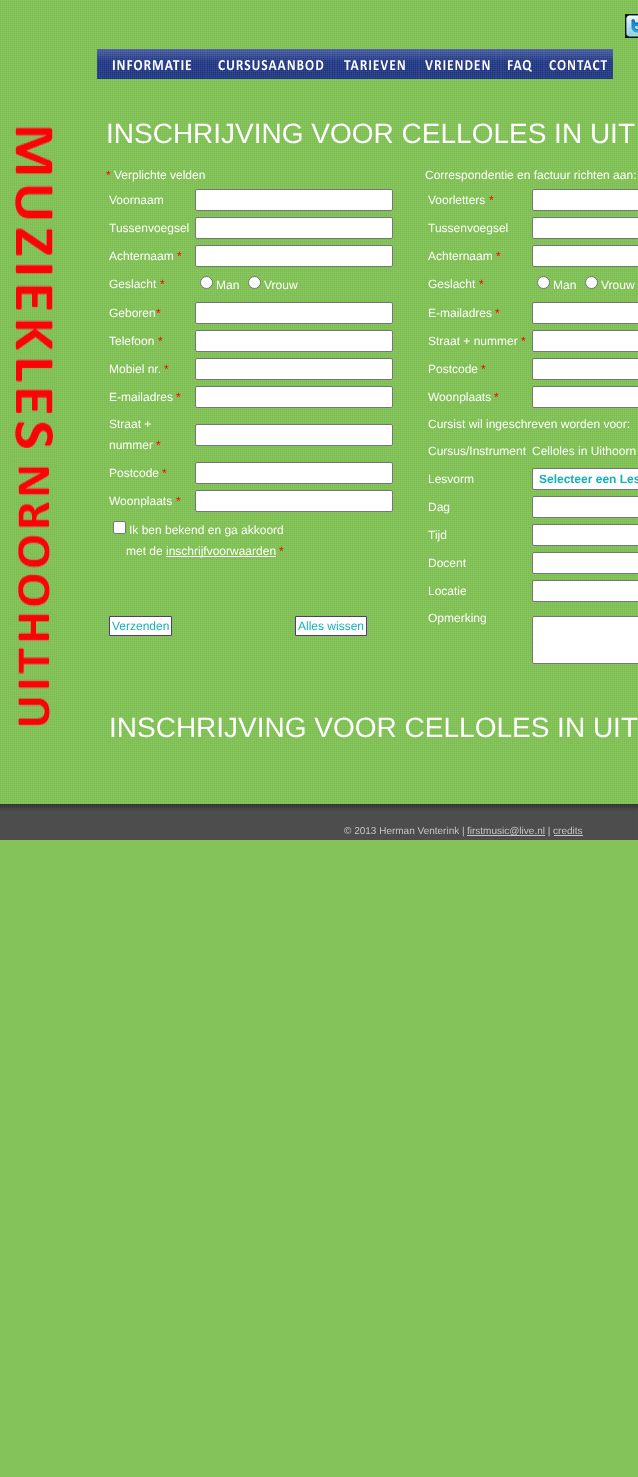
(async () => {
const canvas = document.querySelector("canvas")
canvas.width = 638
canvas.height = 1477
const c = canvas.getContext("2d")
c.miterLimit = 4
c.fontKerning = "normal"
function T(s,x,y){c.fillText(s,x,y)}
function R(x,y,w,h){c.fillRect(x,y,w,h)}
async function I(src,x,y,w,h){const img=new Image();img.src=src;await img.decode();c.drawImage(img,x,y,w,h)}
c.fillStyle="#84c25a"
R(0,0,638,1477)
await I("1.png",0,0,638,804)
await I("2.png",10,127,48,599)
await I("3.png",625,14,13,24)
await I("4.png",97,49,109,30)
await I("5.png",206,49,5,30)
await I("6.png",211,49,120,30)
await I("5.png",331,49,5,30)
await I("7.png",336,49,78,30)
await I("5.png",414,49,5,30)
await I("8.png",419,49,77,30)
await I("5.png",496,49,5,30)
await I("9.png",501,49,38,30)
await I("5.png",539,49,5,30)
await I("10.png",544,49,69,30)
c.font="28px Liberation Sans"
c.fillStyle="#fff"
T("INSCHRIJVING VOOR CELLOLES IN UIT",106,143)
c.font="12px Liberation Sans"
c.fillStyle="#f00"
T("*",106,179)
c.fillStyle="#fff"
T("Verplichte velden",114,179)
T("Voornaam",109,204)
c.beginPath()
c.roundRect(195.5,189.5,197,21,1.5)
c.fill()
c.strokeStyle="#767676"
c.stroke()
T("Tussenvoegsel",109,232)
c.beginPath()
c.roundRect(195.5,217.5,197,21,1.5)
c.fill()
c.stroke()
T("Achternaam",109,260)
c.fillStyle="#f00"
T("*",177,260)
c.fillStyle="#fff"
c.beginPath()
c.roundRect(195.5,245.5,197,21,1.5)
c.fill()
c.stroke()
T("Geslacht",109,288)
c.fillStyle="#f00"
T("*",160,288)
c.fillStyle="#fff"
c.beginPath()
c.arc(206.5,282.5,6,0,7)
c.fill()
c.stroke()
T("Man",216,289)
c.beginPath()
c.arc(254.5,282.5,6,0,7)
c.fill()
c.stroke()
T("Vrouw",264,289)
T("Geboren",109,317)
c.fillStyle="#f00"
T("*",156,317)
c.fillStyle="#fff"
c.beginPath()
c.roundRect(195.5,302.5,197,21,1.5)
c.fill()
c.stroke()
T("Telefoon",109,345)
c.fillStyle="#f00"
T("*",158,345)
c.fillStyle="#fff"
c.beginPath()
c.roundRect(195.5,330.5,197,21,1.5)
c.fill()
c.stroke()
T("Mobiel nr.",109,373)
c.fillStyle="#f00"
T("*",164,373)
c.fillStyle="#fff"
c.beginPath()
c.roundRect(195.5,358.5,197,21,1.5)
c.fill()
c.stroke()
T("E-mailadres",109,401)
c.fillStyle="#f00"
T("*",176,401)
c.fillStyle="#fff"
c.beginPath()
c.roundRect(195.5,386.5,197,21,1.5)
c.fill()
c.stroke()
T("Straat +",109,428)
T("nummer",109,449)
c.fillStyle="#f00"
T("*",156,449)
c.fillStyle="#fff"
c.beginPath()
c.roundRect(195.5,424.5,197,21,1.5)
c.fill()
c.stroke()
T("Postcode",109,477)
c.fillStyle="#f00"
T("*",162,477)
c.fillStyle="#fff"
c.beginPath()
c.roundRect(195.5,462.5,197,21,1.5)
c.fill()
c.stroke()
T("Woonplaats",109,505)
c.fillStyle="#f00"
T("*",176,505)
c.fillStyle="#fff"
c.beginPath()
c.roundRect(195.5,490.5,197,21,1.5)
c.fill()
c.stroke()
c.beginPath()
c.roundRect(113.5,521.5,12,12,1.5)
c.fill()
c.stroke()
T("Ik ben bekend en ga akkoord",129,534)
T("met de",126,555)
R(166,556,110,1)
T("inschrijfvoorwaarden",166,555)
c.fillStyle="#f00"
T("*",279,555)
c.fillStyle="#fff"
c.beginPath()
c.rect(109.5,616.5,62,19)
c.fill()
c.strokeStyle="#56397b"
c.stroke()
c.fillStyle="#15b1b7"
T("Verzenden",112,630)
c.fillStyle="#fff"
c.beginPath()
c.rect(295.5,616.5,71,19)
c.fill()
c.stroke()
c.fillStyle="#15b1b7"
T("Alles wissen",298,630)
c.fillStyle="#fff"
T("Correspondentie en factuur richten aan:",425,179)
T("Voorletters",428,204)
c.fillStyle="#f00"
T("*",489,204)
c.fillStyle="#fff"
c.beginPath()
c.roundRect(532.5,189.5,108,21,1.5)
c.fill()
c.strokeStyle="#767676"
c.stroke()
T("Tussenvoegsel",428,232)
c.beginPath()
c.roundRect(532.5,217.5,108,21,1.5)
c.fill()
c.stroke()
T("Achternaam",428,260)
c.fillStyle="#f00"
T("*",496,260)
c.fillStyle="#fff"
c.beginPath()
c.roundRect(532.5,245.5,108,21,1.5)
c.fill()
c.stroke()
T("Geslacht",428,288)
c.fillStyle="#f00"
T("*",479,288)
c.fillStyle="#fff"
c.beginPath()
c.arc(543.5,282.5,6,0,7)
c.fill()
c.stroke()
T("Man",553,289)
c.beginPath()
c.arc(591.5,282.5,6,0,7)
c.fill()
c.stroke()
T("Vrouw",601,289)
T("E-mailadres",428,317)
c.fillStyle="#f00"
T("*",495,317)
c.fillStyle="#fff"
c.beginPath()
c.roundRect(532.5,302.5,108,21,1.5)
c.fill()
c.stroke()
T("Straat + nummer",428,345)
c.fillStyle="#f00"
T("*",521,345)
c.fillStyle="#fff"
c.beginPath()
c.roundRect(532.5,330.5,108,21,1.5)
c.fill()
c.stroke()
T("Postcode",428,373)
c.fillStyle="#f00"
T("*",481,373)
c.fillStyle="#fff"
c.beginPath()
c.roundRect(532.5,358.5,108,21,1.5)
c.fill()
c.stroke()
T("Woonplaats",428,401)
c.fillStyle="#f00"
T("*",494,401)
c.fillStyle="#fff"
c.beginPath()
c.roundRect(532.5,386.5,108,21,1.5)
c.fill()
c.stroke()
T("Cursist wil ingeschreven worden voor:",428,428)
T("Cursus/Instrument",428,455)
T("Celloles in Uithoorn",532,455)
T("Lesvorm",428,483)
c.beginPath()
c.roundRect(532.5,468.5,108,21,1.5)
c.fill()
c.stroke()
c.font="bold 12px Liberation Sans"
c.fillStyle="#15b1b7"
T("Selecteer een Les",539,483)
c.font="12px Liberation Sans"
c.fillStyle="#fff"
T("Dag",428,511)
c.beginPath()
c.roundRect(532.5,496.5,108,21,1.5)
c.fill()
c.stroke()
T("Tijd",428,539)
c.beginPath()
c.roundRect(532.5,524.5,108,21,1.5)
c.fill()
c.stroke()
T("Docent",428,567)
c.beginPath()
c.roundRect(532.5,552.5,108,21,1.5)
c.fill()
c.stroke()
T("Locatie",428,595)
c.beginPath()
c.roundRect(532.5,580.5,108,21,1.5)
c.fill()
c.stroke()
T("Opmerking",428,622)
c.beginPath()
c.roundRect(532.5,616.5,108,47,1.5)
c.fill()
c.stroke()
c.font="28px Liberation Sans"
T("INSCHRIJVING VOOR CELLOLES IN UIT",109,737)
await I("11.png",0,804,638,36)
c.font="10px Liberation Sans"
c.fillStyle="#c6c6c6"
T("© 2013 Herman Venterink |",344,834)
R(467,835,78,1)
T("firstmusic@live.nl | credits",467,834)
R(554,835,29,1)
})()
